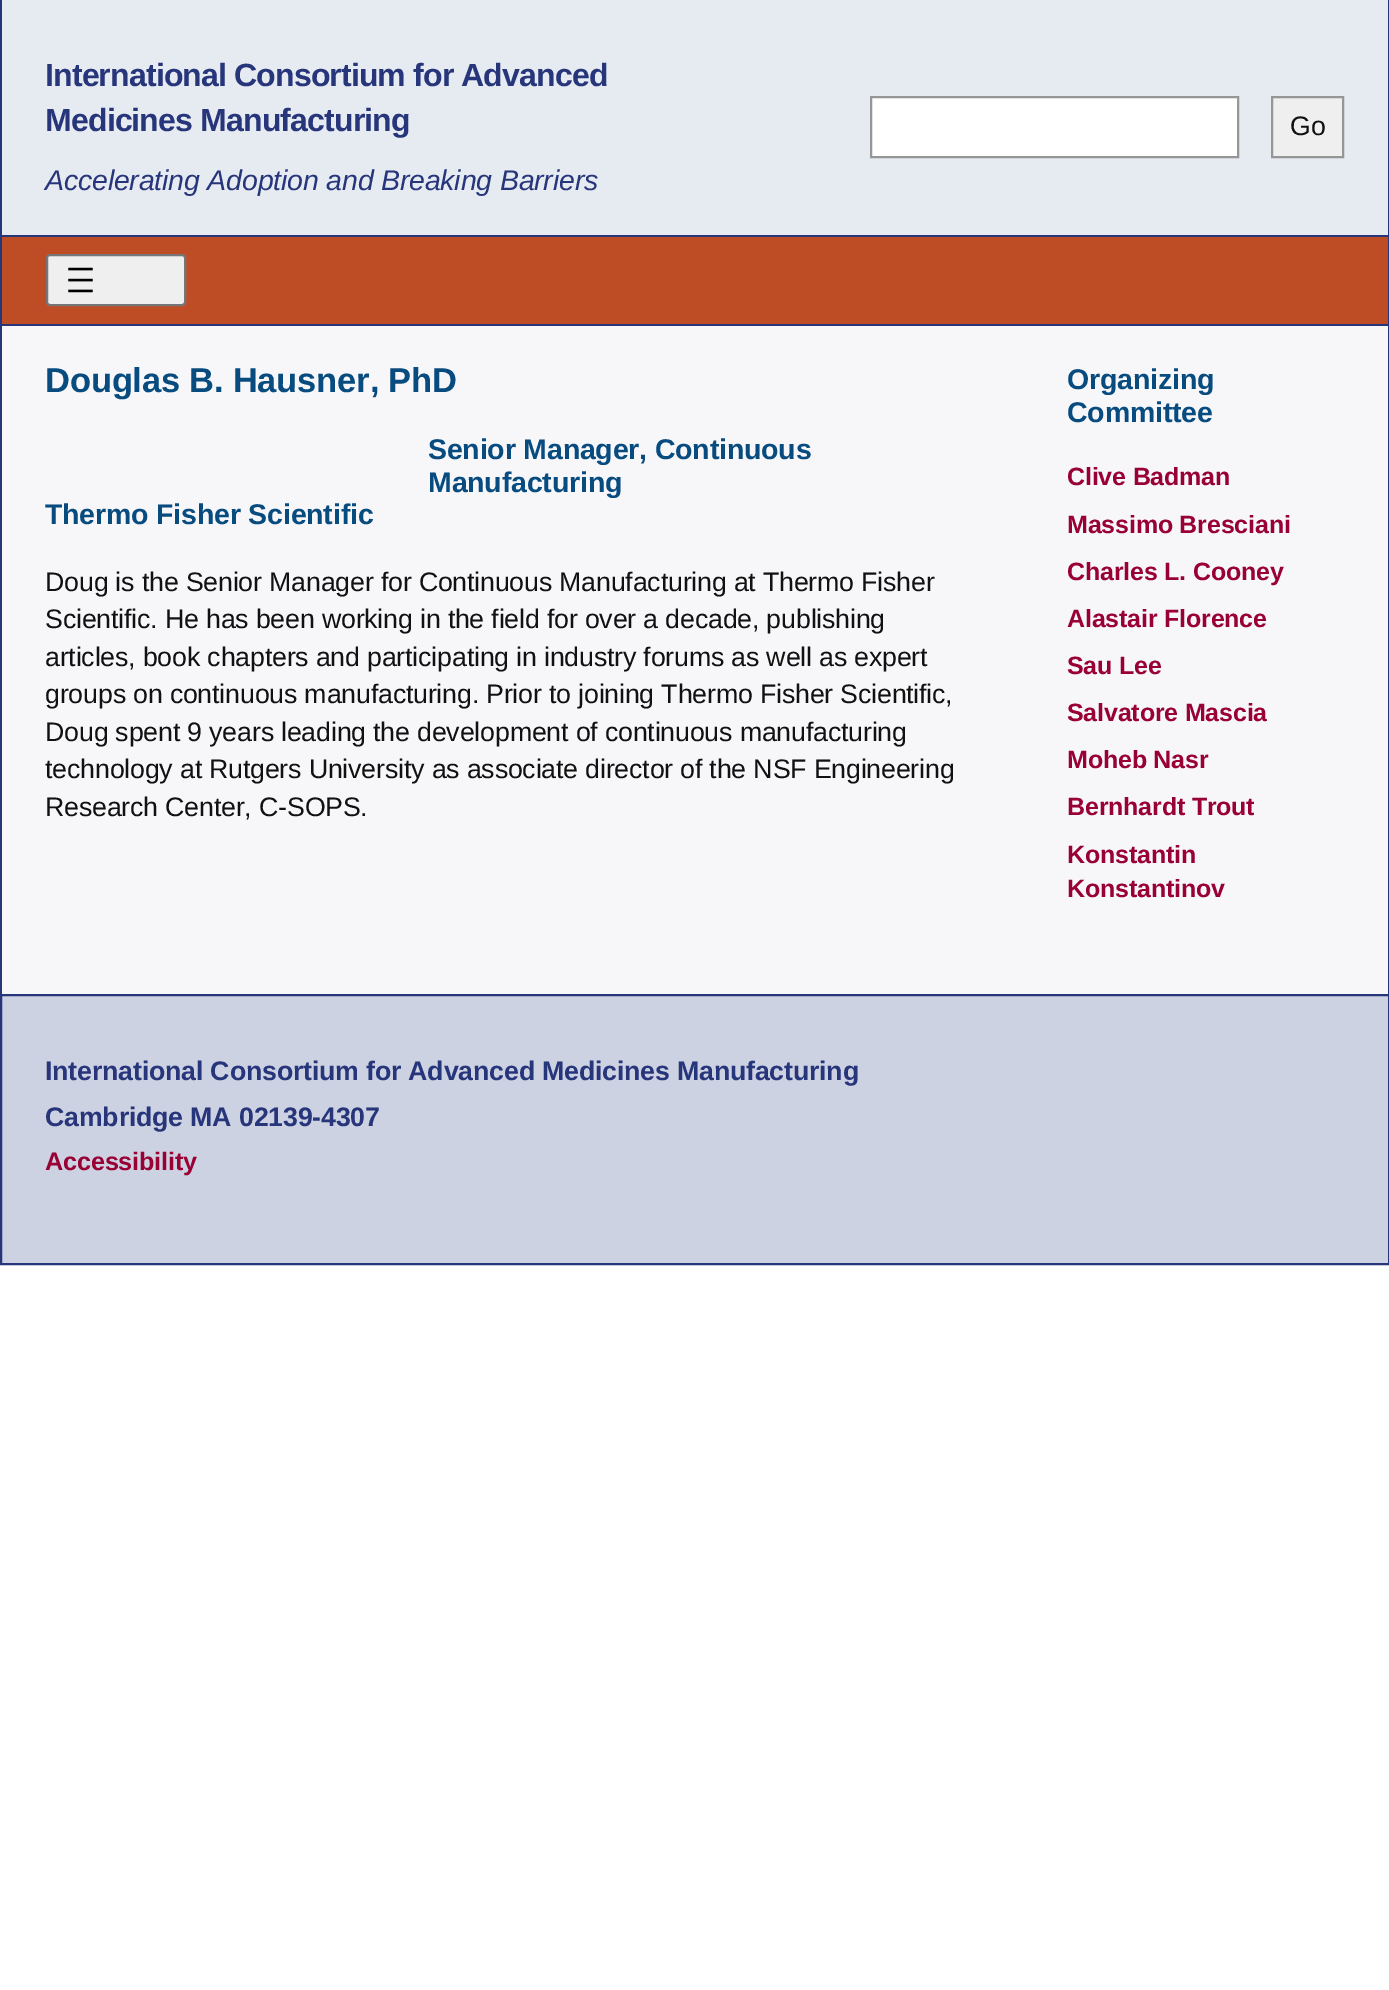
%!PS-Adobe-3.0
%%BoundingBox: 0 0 1389 1990
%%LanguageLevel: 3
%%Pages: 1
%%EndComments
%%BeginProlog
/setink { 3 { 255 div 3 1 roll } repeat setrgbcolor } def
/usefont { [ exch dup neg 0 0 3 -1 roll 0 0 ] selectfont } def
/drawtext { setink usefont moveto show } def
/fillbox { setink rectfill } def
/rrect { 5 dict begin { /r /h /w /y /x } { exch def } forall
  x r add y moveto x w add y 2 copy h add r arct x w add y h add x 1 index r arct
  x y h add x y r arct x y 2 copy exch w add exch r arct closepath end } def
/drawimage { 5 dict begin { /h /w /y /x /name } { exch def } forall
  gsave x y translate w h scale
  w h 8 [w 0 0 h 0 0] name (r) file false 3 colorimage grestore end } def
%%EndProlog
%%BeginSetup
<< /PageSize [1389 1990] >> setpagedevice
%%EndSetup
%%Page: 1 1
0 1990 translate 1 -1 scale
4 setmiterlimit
0 0 1389 1990 255 255 255 fillbox
2 0 1386 235 230 234 241 fillbox
1388 0 1 994 39 53 122 fillbox
0 0 2 994 39 53 122 fillbox
/LiberationSans-Bold 32.1 usefont
45 86 moveto -0.9 0 (International Consortium for Advanced) ashow
45 131 moveto -0.9 0 (Medicines Manufacturing) ashow
/LiberationSans-Italic 28.5 usefont
45 190 moveto -0.18 0 (Accelerating Adoption and Breaking Barriers) ashow
255 255 255 setink
871 97 moveto 1238 97 lineto 1238 157 lineto 871 157 lineto closepath gsave fill grestore
150 150 150 setink
2 setlinewidth
stroke
239 239 239 setink
1272 97 moveto 1343 97 lineto 1343 157 lineto 1272 157 lineto closepath gsave fill grestore
150 150 150 setink
stroke
(Go) 1290 135 /LiberationSans-Regular 26.75 17 17 17 drawtext
2 237 1386 87 190 77 38 fillbox
2 235 1386 2 39 53 122 fillbox
2 324 1386 2 39 53 122 fillbox
239 239 239 setink
47 255 138 50 3 rrect gsave fill grestore
118 118 118 setink
stroke
(assets/img1.rgb) 68 267 25 26 drawimage
2 326 1386 668 247 247 249 fillbox
/LiberationSans-Bold 34.5 usefont
7 75 127 setink
45 392 moveto -0.18 0 (Douglas B. Hausner, PhD) ashow
/LiberationSans-Bold 28.5 usefont
428 459 moveto -0.18 0 (Senior Manager, Continuous) ashow
428 492 moveto -0.18 0 (Manufacturing) ashow
45 524 moveto -0.18 0 (Thermo Fisher Scientific) ashow
/LiberationSans-Regular 26.75 usefont
17 17 17 setink
45 591 moveto -0.18 0 (Doug is the Senior Manager for Continuous Manufacturing at Thermo Fisher) ashow
45 628 moveto -0.18 0 (Scientific. He has been working in the field for over a decade, publishing) ashow
45 666 moveto -0.18 0 (articles, book chapters and participating in industry forums as well as expert) ashow
45 703 moveto -0.18 0 (groups on continuous manufacturing. Prior to joining Thermo Fisher Scientific,) ashow
45 741 moveto -0.18 0 (Doug spent 9 years leading the development of continuous manufacturing) ashow
45 778 moveto -0.18 0 (technology at Rutgers University as associate director of the NSF Engineering) ashow
45 816 moveto -0.18 0 (Research Center, C-SOPS.) ashow
/LiberationSans-Bold 28.5 usefont
7 75 127 setink
1067 389 moveto -0.18 0 (Organizing) ashow
1067 422 moveto -0.18 0 (Committee) ashow
/LiberationSans-Bold 25 usefont
153 0 51 setink
1067 485 moveto -0.18 0 (Clive Badman) ashow
1067 533 moveto -0.18 0 (Massimo Bresciani) ashow
1067 580 moveto -0.18 0 (Charles L. Cooney) ashow
1067 627 moveto -0.18 0 (Alastair Florence) ashow
1067 674 moveto -0.18 0 (Sau Lee) ashow
1067 721 moveto -0.18 0 (Salvatore Mascia) ashow
1067 768 moveto -0.18 0 (Moheb Nasr) ashow
1067 815 moveto -0.18 0 (Bernhardt Trout) ashow
1067 863 moveto -0.18 0 (Konstantin) ashow
1067 897 moveto -0.18 0 (Konstantinov) ashow
204 210 226 setink
1 995 moveto 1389 995 lineto 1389 1264 lineto 1 1264 lineto closepath gsave fill grestore
39 53 122 setink
stroke
/LiberationSans-Bold 26.75 usefont
45 1080 moveto -0.18 0 (International Consortium for Advanced Medicines Manufacturing) ashow
45 1126 moveto -0.18 0 (Cambridge MA 02139-4307) ashow
/LiberationSans-Bold 25.25 usefont
153 0 51 setink
45 1170 moveto -0.18 0 (Accessibility) ashow
showpage
%%EOF
